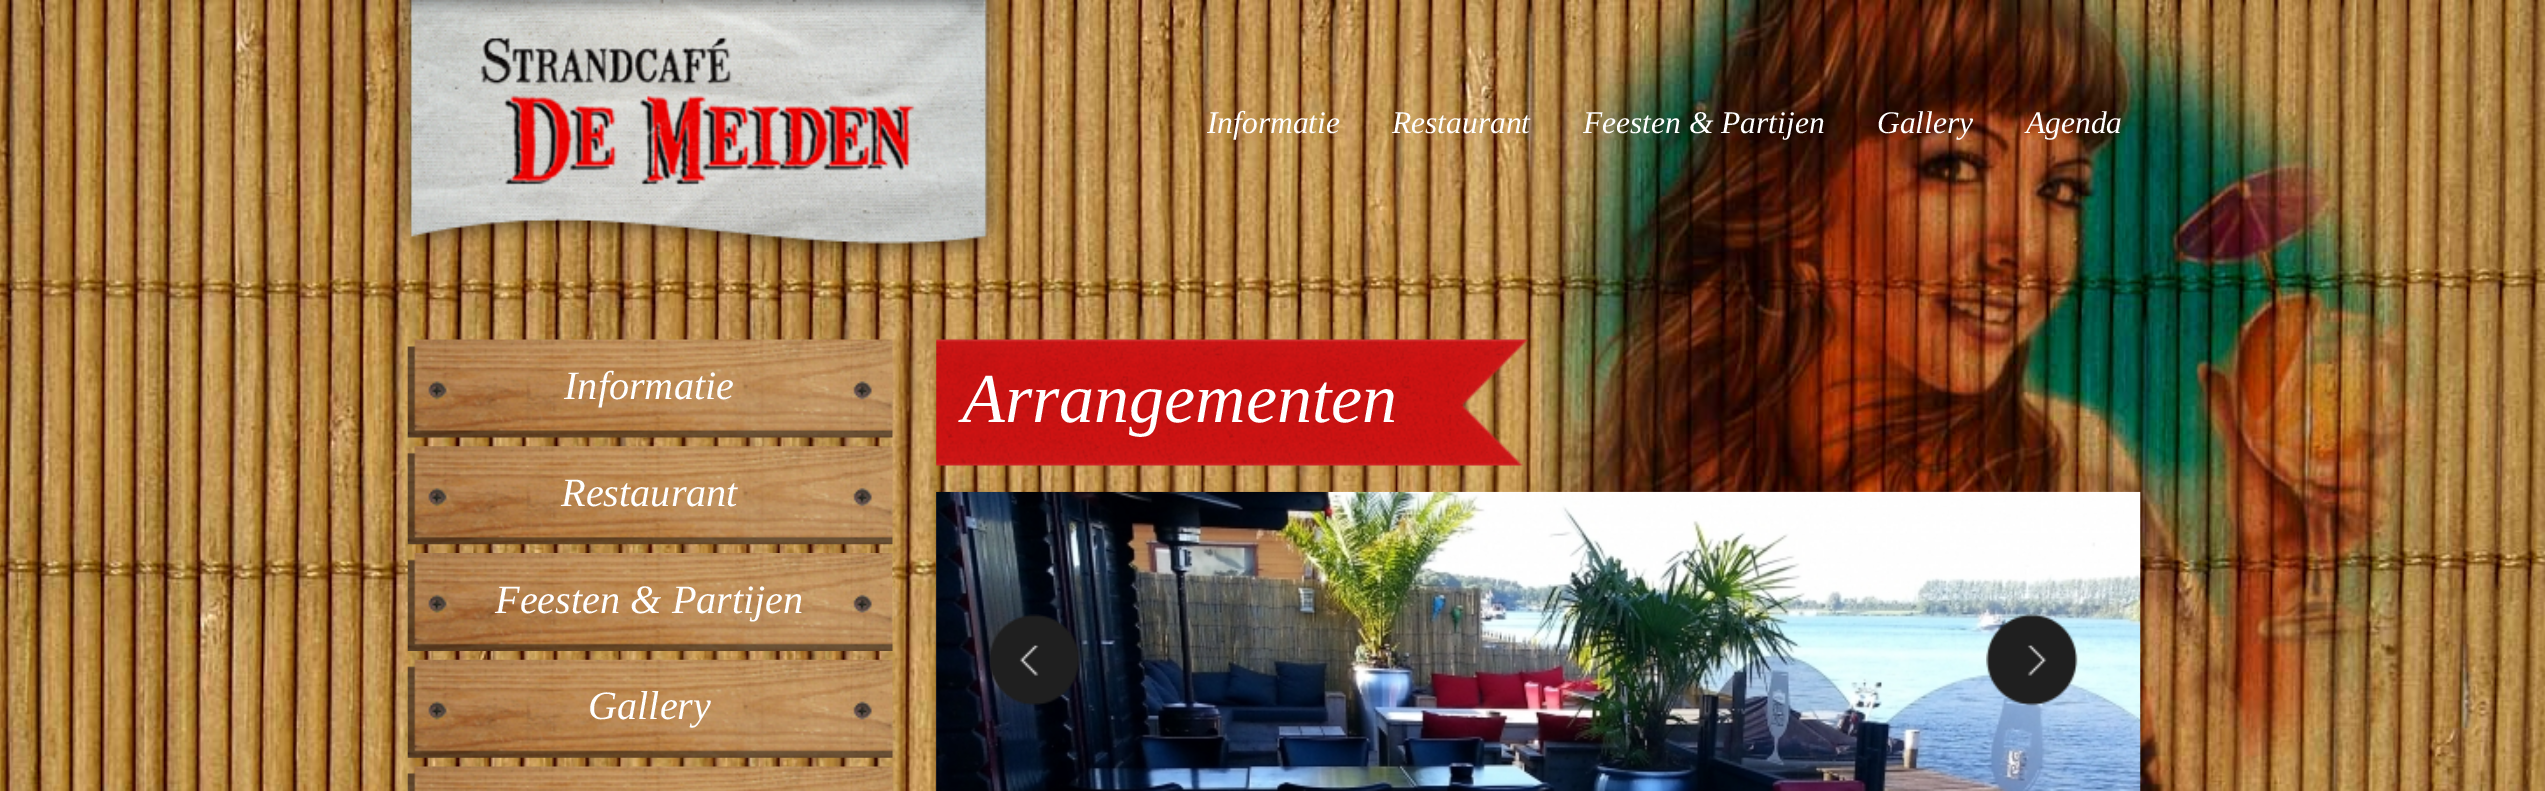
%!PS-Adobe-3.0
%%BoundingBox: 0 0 2545 791
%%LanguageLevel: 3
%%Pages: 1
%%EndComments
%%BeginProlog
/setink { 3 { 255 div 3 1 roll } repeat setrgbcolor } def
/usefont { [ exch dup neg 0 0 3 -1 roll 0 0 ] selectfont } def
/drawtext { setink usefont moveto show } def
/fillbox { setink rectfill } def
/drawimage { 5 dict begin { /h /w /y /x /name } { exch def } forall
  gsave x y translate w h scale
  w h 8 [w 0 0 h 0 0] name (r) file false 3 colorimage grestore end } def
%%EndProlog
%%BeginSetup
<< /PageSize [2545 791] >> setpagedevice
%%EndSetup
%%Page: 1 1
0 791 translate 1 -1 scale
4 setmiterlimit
0 0 2545 791 255 255 255 fillbox
(assets/img1.rgb) 0 0 2545 791 drawimage
(assets/img2.rgb) 392 0 613 262 drawimage
(Informatie) 1207 133 /LiberationSerif-Italic 31.5 255 255 255 drawtext
(Restaurant) 1392 133 /LiberationSerif-Italic 31.5 255 255 255 drawtext
(Feesten & Partijen) 1583 133 /LiberationSerif-Italic 31.5 255 255 255 drawtext
(Gallery) 1877 133 /LiberationSerif-Italic 31.5 255 255 255 drawtext
(Agenda) 2026 133 /LiberationSerif-Italic 31.5 255 255 255 drawtext
(assets/img3.rgb) 407 339 486 99 drawimage
(Informatie) 564 399 /LiberationSerif-Italic 40.25 255 255 255 drawtext
(assets/img4.rgb) 407 446 486 99 drawimage
(Restaurant) 561 506 /LiberationSerif-Italic 40.25 255 255 255 drawtext
(assets/img5.rgb) 407 553 486 98 drawimage
(Feesten & Partijen) 495 613 /LiberationSerif-Italic 40.25 255 255 255 drawtext
(assets/img6.rgb) 407 659 486 99 drawimage
(Gallery) 588 719 /LiberationSerif-Italic 40.25 255 255 255 drawtext
(assets/img7.rgb) 407 766 486 25 drawimage
(assets/img8.rgb) 936 339 592 127 drawimage
(Arrangementen) 962 422 /LiberationSerif-Italic 70 255 255 255 drawtext
936 492 1 299 51 51 51 fillbox
(assets/img9.rgb) 936 491 1205 300 drawimage
(assets/img10.rgb) 989 614 91 91 drawimage
(assets/img11.rgb) 1986 614 92 92 drawimage
showpage
%%EOF
